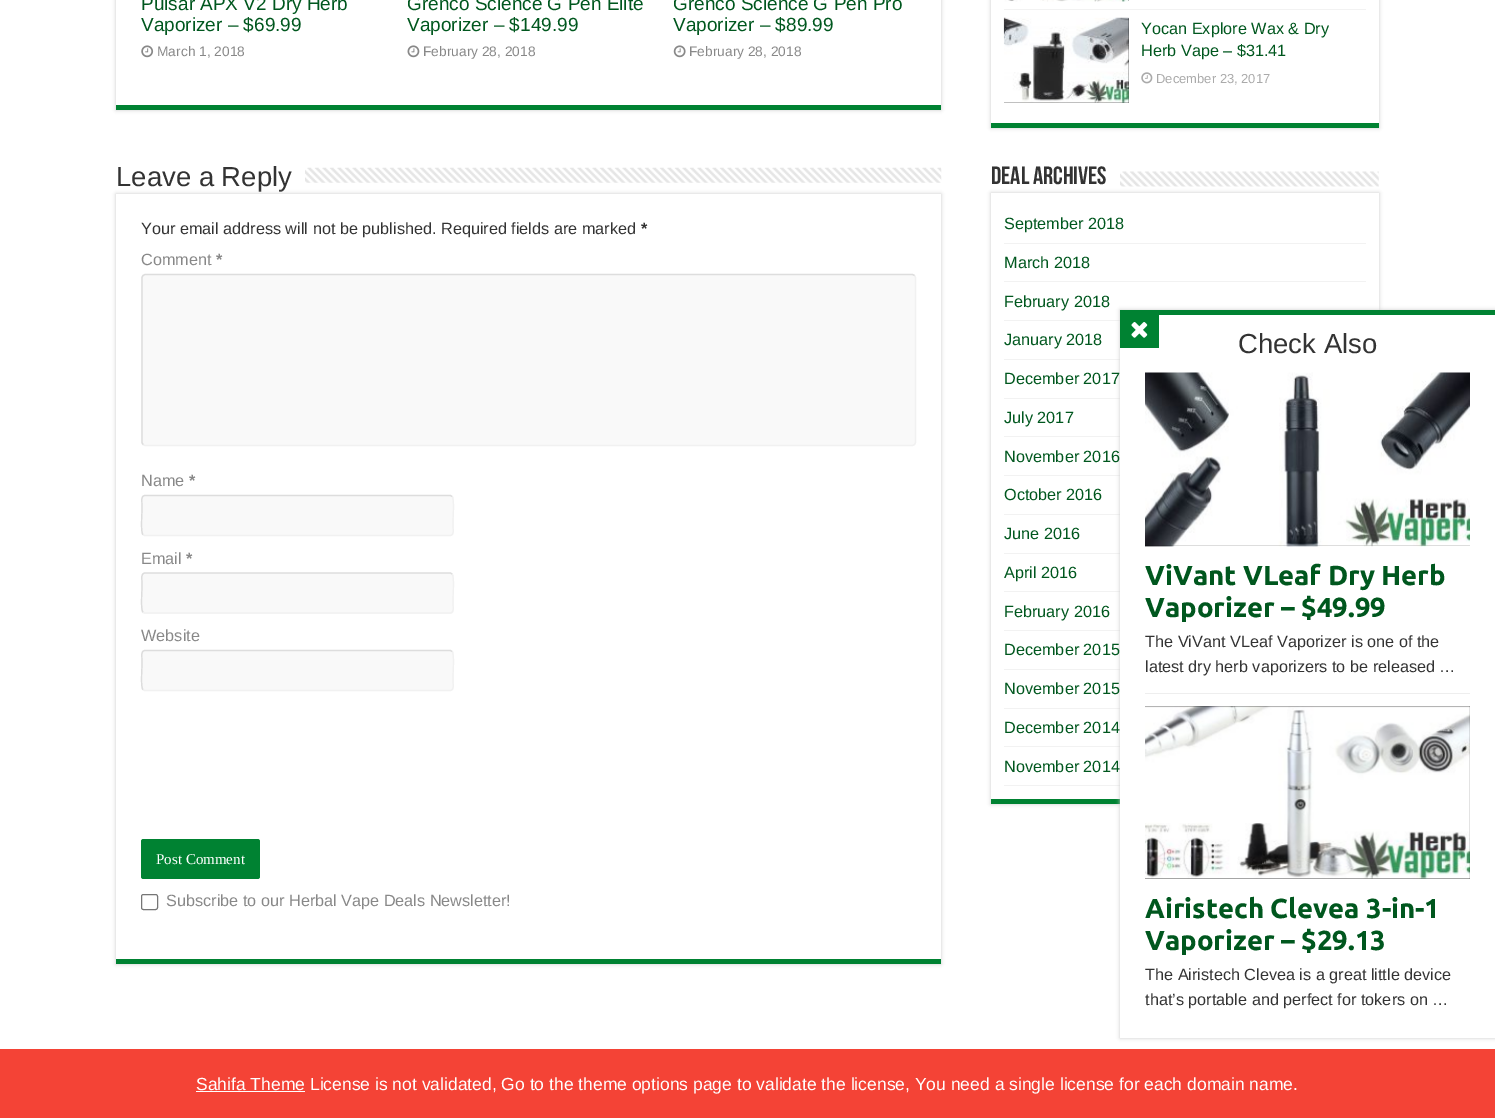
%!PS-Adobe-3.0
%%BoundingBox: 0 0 1495 1118
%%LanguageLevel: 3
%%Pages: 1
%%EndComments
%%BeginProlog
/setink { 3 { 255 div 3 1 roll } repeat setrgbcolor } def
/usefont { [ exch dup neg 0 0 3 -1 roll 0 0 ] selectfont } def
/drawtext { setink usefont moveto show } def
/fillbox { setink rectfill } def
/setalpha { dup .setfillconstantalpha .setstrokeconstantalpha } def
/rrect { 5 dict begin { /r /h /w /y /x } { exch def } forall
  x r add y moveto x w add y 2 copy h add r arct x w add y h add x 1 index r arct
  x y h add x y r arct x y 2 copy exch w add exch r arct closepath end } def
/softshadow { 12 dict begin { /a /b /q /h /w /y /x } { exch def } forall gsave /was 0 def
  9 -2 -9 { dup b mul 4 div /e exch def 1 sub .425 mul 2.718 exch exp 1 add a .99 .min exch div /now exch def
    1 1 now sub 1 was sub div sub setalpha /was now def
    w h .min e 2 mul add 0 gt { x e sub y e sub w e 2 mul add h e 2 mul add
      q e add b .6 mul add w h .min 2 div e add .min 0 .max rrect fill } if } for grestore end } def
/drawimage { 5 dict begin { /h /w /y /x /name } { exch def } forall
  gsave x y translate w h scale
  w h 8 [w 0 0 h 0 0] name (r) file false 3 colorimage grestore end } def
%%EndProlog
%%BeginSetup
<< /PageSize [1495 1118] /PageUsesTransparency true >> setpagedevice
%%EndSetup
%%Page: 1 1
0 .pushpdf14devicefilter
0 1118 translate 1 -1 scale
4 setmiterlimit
0 0 1495 1118 255 255 255 fillbox
202 202 202 setink
116 -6 825 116 0 2 1 softshadow
116 0 825 105 255 255 255 fillbox
116 105 825 5 0 130 50 fillbox
(Pulsar APX V2 Dry Herb) 141 10 /LiberationSans-Regular 19 0 87 30 drawtext
(Vaporizer – $69.99) 141 31 /LiberationSans-Regular 19 0 87 30 drawtext
(assets/img1.rgb) 141 45 13 13 drawimage
(March 1, 2018) 157 56 /LiberationSans-Regular 13.75 136 136 136 drawtext
(Grenco Science G Pen Elite) 407 10 /LiberationSans-Regular 19 0 87 30 drawtext
(Vaporizer – $149.99) 407 31 /LiberationSans-Regular 19 0 87 30 drawtext
(assets/img2.rgb) 407 45 13 13 drawimage
(February 28, 2018) 423 56 /LiberationSans-Regular 13.75 136 136 136 drawtext
(Grenco Science G Pen Pro) 673 10 /LiberationSans-Regular 19 0 87 30 drawtext
(Vaporizer – $89.99) 673 31 /LiberationSans-Regular 19 0 87 30 drawtext
(assets/img3.rgb) 673 45 13 13 drawimage
(February 28, 2018) 689 56 /LiberationSans-Regular 13.75 136 136 136 drawtext
(Leave a Reply) 116 186 /LiberationSans-Regular 27.5 51 51 51 drawtext
(assets/img4.rgb) 305 167 637 16 drawimage
202 202 202 setink
116 194 825 770 0 2 1 softshadow
116 194 825 765 255 255 255 fillbox
116 959 825 5 0 130 50 fillbox
(Your email address will not be published. Required fields are marked) 141 234 /LiberationSans-Regular 16.25 51 51 51 drawtext
(*) 641 234 /LiberationSans-Bold 16.25 51 51 51 drawtext
(Comment) 141 265 /LiberationSans-Regular 16.25 136 136 136 drawtext
(*) 216 265 /LiberationSans-Bold 16.25 136 136 136 drawtext
249 249 249 setink
141 274 775 172 4 rrect fill
241 241 241 setink
1.2 setlinewidth
914.5 275.5 moveto 915.5 277.5 lineto 915.5 442.5 lineto 914.5 444.5 lineto 912.5 445.5 lineto 145 445.5 lineto 143 444.5 lineto stroke
221 221 221 setink
143 444.5 moveto 142 442.5 lineto 142 277.5 lineto 143 275.5 lineto 145 274.5 lineto 912.5 274.5 lineto 914.5 275.5 lineto stroke
(Name) 141 486 /LiberationSans-Regular 16.25 136 136 136 drawtext
(*) 189 486 /LiberationSans-Bold 16.25 136 136 136 drawtext
249 249 249 setink
141 495 313 41 4 rrect fill
241 241 241 setink
452 496.5 moveto 454.5 498.5 453 517.5 453 521 curveto 453 527 lineto 453 529 454.5 535.5 450 535.5 curveto 144.5 535.5 lineto 143 534.5 lineto stroke
221 221 221 setink
143 534.5 moveto 140.5 532.5 142 514 142 510 curveto 142 504.5 lineto 142 502 140.5 495.5 145 495.5 curveto 450.5 495.5 lineto 452 496.5 lineto stroke
(Email) 141 564 /LiberationSans-Regular 16.25 136 136 136 drawtext
(*) 186 564 /LiberationSans-Bold 16.25 136 136 136 drawtext
249 249 249 setink
141 573 313 41 4 rrect fill
241 241 241 setink
452 574 moveto 454.5 576 453 595 453 599 curveto 453 604.5 lineto 453 606.5 454.5 613 450 613 curveto 144.5 613 lineto 143 612 lineto stroke
221 221 221 setink
143 612 moveto 140.5 610 142 591.5 142 587.5 curveto 142 582 lineto 142 579.5 140.5 573 145 573 curveto 450.5 573 lineto 452 574 lineto stroke
(Website) 141 641 /LiberationSans-Regular 16.25 136 136 136 drawtext
249 249 249 setink
141 650 313 41 4 rrect fill
241 241 241 setink
452 651.5 moveto 454.5 653.5 453 672.5 453 676 curveto 453 682 lineto 453 684 454.5 690.5 450 690.5 curveto 144.5 690.5 lineto 143 689.5 lineto stroke
221 221 221 setink
143 689.5 moveto 140.5 687.5 142 669 142 665 curveto 142 659.5 lineto 142 657 140.5 650.5 145 650.5 curveto 450.5 650.5 lineto 452 651.5 lineto stroke
0 130 50 setink
141 839 119 40 2.5 rrect fill
(Post Comment) 156 864 /LiberationSerif-Regular 15 255 255 255 drawtext
118 118 118 setink
1 setlinewidth
141.5 894.5 16 15 2 rrect stroke
(Subscribe to our Herbal Vape Deals Newsletter!) 166 906 /LiberationSans-Regular 16.25 136 136 136 drawtext
202 202 202 setink
991 193 388 611 0 2 1 softshadow
991 193 388 606 255 255 255 fillbox
991 799 129 5 0 130 50 fillbox
1004 320 116 1 242 242 242 fillbox
1004 359 116 1 242 242 242 fillbox
1004 398 116 1 242 242 242 fillbox
1004 436 116 1 242 242 242 fillbox
1004 475 116 1 242 242 242 fillbox
1004 514 116 1 242 242 242 fillbox
1004 553 116 1 242 242 242 fillbox
1004 591 116 1 242 242 242 fillbox
1004 630 116 1 242 242 242 fillbox
1004 669 116 1 242 242 242 fillbox
1004 708 116 1 242 242 242 fillbox
1004 746 116 1 242 242 242 fillbox
1004 785 116 1 242 242 242 fillbox
202 202 202 setink
1120 310 375 728 0 2 1 softshadow
1120 315 375 723 255 255 255 fillbox
1120 310 375 5 0 130 50 fillbox
1120 315 39 33 0 130 50 fillbox
(assets/img5.rgb) 1131 322 17 16 drawimage
(Check Also) 1238 353 /LiberationSans-Regular 27.5 51 51 51 drawtext
1145 693 325 1 238 238 238 fillbox
(assets/img6.rgb) 1145 372 325 175 drawimage
(ViVant VLeaf Dry Herb) 1145 585 /Ubuntu-Bold 27.5 0 87 30 drawtext
(Vaporizer – $49.99) 1145 617 /Ubuntu-Bold 27.5 0 87 30 drawtext
(The ViVant VLeaf Vaporizer is one of the) 1145 647 /LiberationSans-Regular 16.25 51 51 51 drawtext
(latest dry herb vaporizers to be released …) 1145 672 /LiberationSans-Regular 16.25 51 51 51 drawtext
1145 706 325 173 0 0 0 fillbox
(assets/img7.rgb) 1145 706 325 173 drawimage
(Airistech Clevea 3-in-1) 1145 918 /Ubuntu-Bold 27.5 0 87 30 drawtext
(Vaporizer – $29.13) 1145 950 /Ubuntu-Bold 27.5 0 87 30 drawtext
(The Airistech Clevea is a great little device) 1145 980 /LiberationSans-Regular 16.25 51 51 51 drawtext
(that’s portable and perfect for tokers on …) 1145 1005 /LiberationSans-Regular 16.25 51 51 51 drawtext
202 202 202 setink
991 -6 388 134 0 2 1 softshadow
991 0 388 123 255 255 255 fillbox
991 123 388 5 0 130 50 fillbox
1004 9 362 1 242 242 242 fillbox
(assets/img8.rgb) 1004 0 125 2 drawimage
1004 18 125 85 0 0 0 fillbox
(assets/img9.rgb) 1003 17 126 86 drawimage
(Yocan Explore Wax & Dry) 1141 34 /LiberationSans-Regular 16.25 0 87 30 drawtext
(Herb Vape – $31.41) 1141 56 /LiberationSans-Regular 16.25 0 87 30 drawtext
(assets/img10.rgb) 1141 72 12 12 drawimage
(December 23, 2017) 1156 83 /LiberationSans-Regular 13 170 170 170 drawtext
(Deal Archives) 991 184 /BebasNeue-Bold 25 51 51 51 drawtext
(assets/img11.rgb) 1120 171 259 16 drawimage
1004 243 362 1 242 242 242 fillbox
(September 2018) 1004 229 /LiberationSans-Regular 16.25 0 87 30 drawtext
1004 281 362 1 242 242 242 fillbox
(March 2018) 1004 268 /LiberationSans-Regular 16.25 0 87 30 drawtext
(February 2018) 1004 307 /LiberationSans-Regular 16.25 0 87 30 drawtext
(January 2018) 1004 345 /LiberationSans-Regular 16.25 0 87 30 drawtext
(December 2017) 1004 384 /LiberationSans-Regular 16.25 0 87 30 drawtext
(July 2017) 1004 423 /LiberationSans-Regular 16.25 0 87 30 drawtext
(November 2016) 1004 462 /LiberationSans-Regular 16.25 0 87 30 drawtext
(October 2016) 1004 500 /LiberationSans-Regular 16.25 0 87 30 drawtext
(June 2016) 1004 539 /LiberationSans-Regular 16.25 0 87 30 drawtext
(April 2016) 1004 578 /LiberationSans-Regular 16.25 0 87 30 drawtext
(February 2016) 1004 617 /LiberationSans-Regular 16.25 0 87 30 drawtext
(December 2015) 1004 655 /LiberationSans-Regular 16.25 0 87 30 drawtext
(November 2015) 1004 694 /LiberationSans-Regular 16.25 0 87 30 drawtext
(December 2014) 1004 733 /LiberationSans-Regular 16.25 0 87 30 drawtext
(November 2014) 1004 772 /LiberationSans-Regular 16.25 0 87 30 drawtext
0 1049 1495 69 244 67 54 fillbox
196 1091 109 1 255 255 255 fillbox
(Sahifa Theme License is not validated, Go to the theme options page to validate the license, You need a single license for each domain name.) 196 1090 /LiberationSans-Regular 17.5 255 255 255 drawtext
.poppdf14devicefilter showpage
%%EOF
